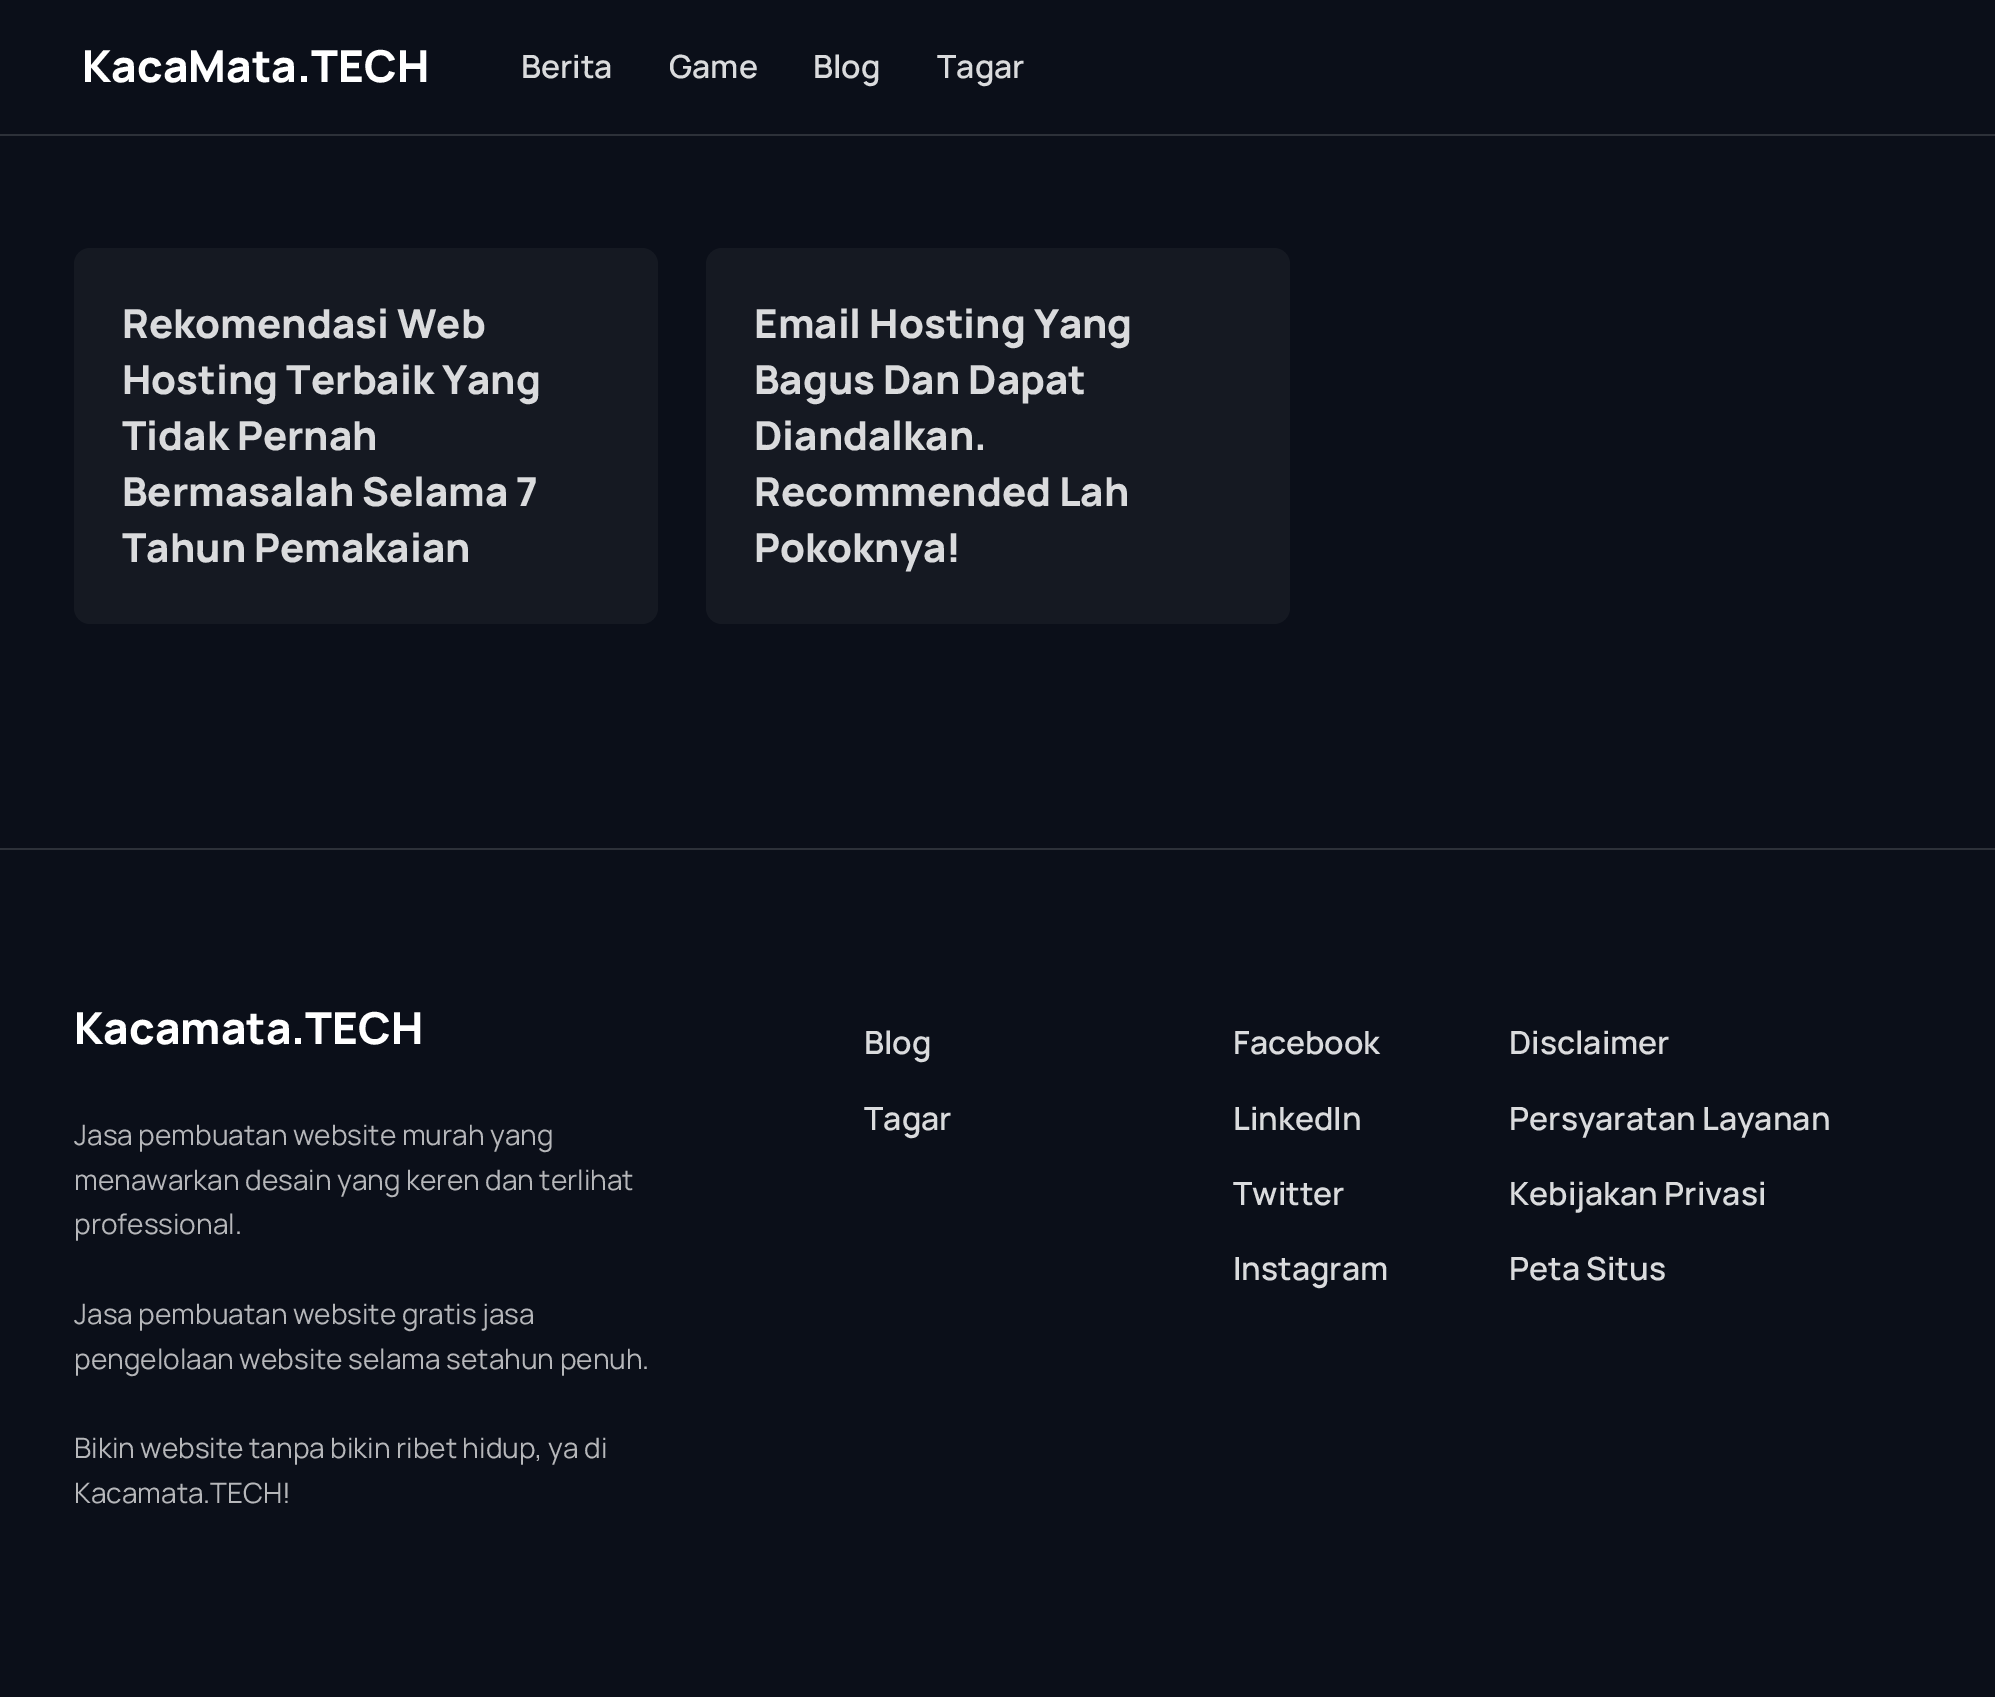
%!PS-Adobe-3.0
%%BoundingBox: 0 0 1995 1697
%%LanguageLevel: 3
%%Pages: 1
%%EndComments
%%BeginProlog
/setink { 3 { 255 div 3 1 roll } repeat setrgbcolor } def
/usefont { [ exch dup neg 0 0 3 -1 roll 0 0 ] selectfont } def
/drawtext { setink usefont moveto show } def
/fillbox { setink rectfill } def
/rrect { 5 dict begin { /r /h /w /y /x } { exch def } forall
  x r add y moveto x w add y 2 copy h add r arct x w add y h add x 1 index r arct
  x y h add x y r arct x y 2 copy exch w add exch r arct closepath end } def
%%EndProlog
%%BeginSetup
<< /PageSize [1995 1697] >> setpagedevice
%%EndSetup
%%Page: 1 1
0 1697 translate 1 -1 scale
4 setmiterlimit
0 0 1995 1697 11 15 25 fillbox
0 134 1995 2 45 49 57 fillbox
(KacaMata.TECH) 82 82 /Manrope-ExtraBold 44 255 255 255 drawtext
(Berita) 521 78 /Manrope-SemiBold 32 218 219 221 drawtext
(Game) 669 78 /Manrope-SemiBold 32 218 219 221 drawtext
(Blog) 813 78 /Manrope-SemiBold 32 218 219 221 drawtext
(Tagar) 937 78 /Manrope-SemiBold 32 218 219 221 drawtext
21 25 34 setink
74 248 584 376 16 rrect fill
(Rekomendasi Web) 122 338 /Manrope-ExtraBold 40 218 219 221 drawtext
(Hosting Terbaik Yang) 122 394 /Manrope-ExtraBold 40 218 219 221 drawtext
(Tidak Pernah) 122 450 /Manrope-ExtraBold 40 218 219 221 drawtext
(Bermasalah Selama 7) 122 506 /Manrope-ExtraBold 40 218 219 221 drawtext
(Tahun Pemakaian) 122 562 /Manrope-ExtraBold 40 218 219 221 drawtext
21 25 34 setink
706 248 584 376 16 rrect fill
(Email Hosting Yang) 754 338 /Manrope-ExtraBold 40 218 219 221 drawtext
(Bagus Dan Dapat) 754 394 /Manrope-ExtraBold 40 218 219 221 drawtext
(Diandalkan.) 754 450 /Manrope-ExtraBold 40 218 219 221 drawtext
(Recommended Lah) 754 506 /Manrope-ExtraBold 40 218 219 221 drawtext
(Pokoknya!) 754 562 /Manrope-ExtraBold 40 218 219 221 drawtext
0 848 1995 2 45 49 57 fillbox
(Kacamata.TECH) 74 1044 /Manrope-ExtraBold 44 255 255 255 drawtext
(Jasa pembuatan website murah yang) 74 1145 /Manrope-Regular 28 182 183 186 drawtext
(menawarkan desain yang keren dan terlihat) 74 1190 /Manrope-Regular 28 182 183 186 drawtext
(professional.) 74 1234 /Manrope-Regular 28 182 183 186 drawtext
(Jasa pembuatan website gratis jasa) 74 1324 /Manrope-Regular 28 182 183 186 drawtext
(pengelolaan website selama setahun penuh.) 74 1369 /Manrope-Regular 28 182 183 186 drawtext
(Bikin website tanpa bikin ribet hidup, ya di) 74 1458 /Manrope-Regular 28 182 183 186 drawtext
(Kacamata.TECH!) 74 1503 /Manrope-Regular 28 182 183 186 drawtext
(Blog) 864 1054 /Manrope-SemiBold 32 218 219 221 drawtext
(Tagar) 864 1130 /Manrope-SemiBold 32 218 219 221 drawtext
(Facebook) 1233 1054 /Manrope-SemiBold 32 218 219 221 drawtext
(LinkedIn) 1233 1130 /Manrope-SemiBold 32 218 219 221 drawtext
(Twitter) 1233 1205 /Manrope-SemiBold 32 218 219 221 drawtext
(Instagram) 1233 1280 /Manrope-SemiBold 32 218 219 221 drawtext
(Disclaimer) 1509 1054 /Manrope-SemiBold 32 218 219 221 drawtext
(Persyaratan Layanan) 1509 1130 /Manrope-SemiBold 32 218 219 221 drawtext
(Kebijakan Privasi) 1509 1205 /Manrope-SemiBold 32 218 219 221 drawtext
(Peta Situs) 1509 1280 /Manrope-SemiBold 32 218 219 221 drawtext
showpage
%%EOF
